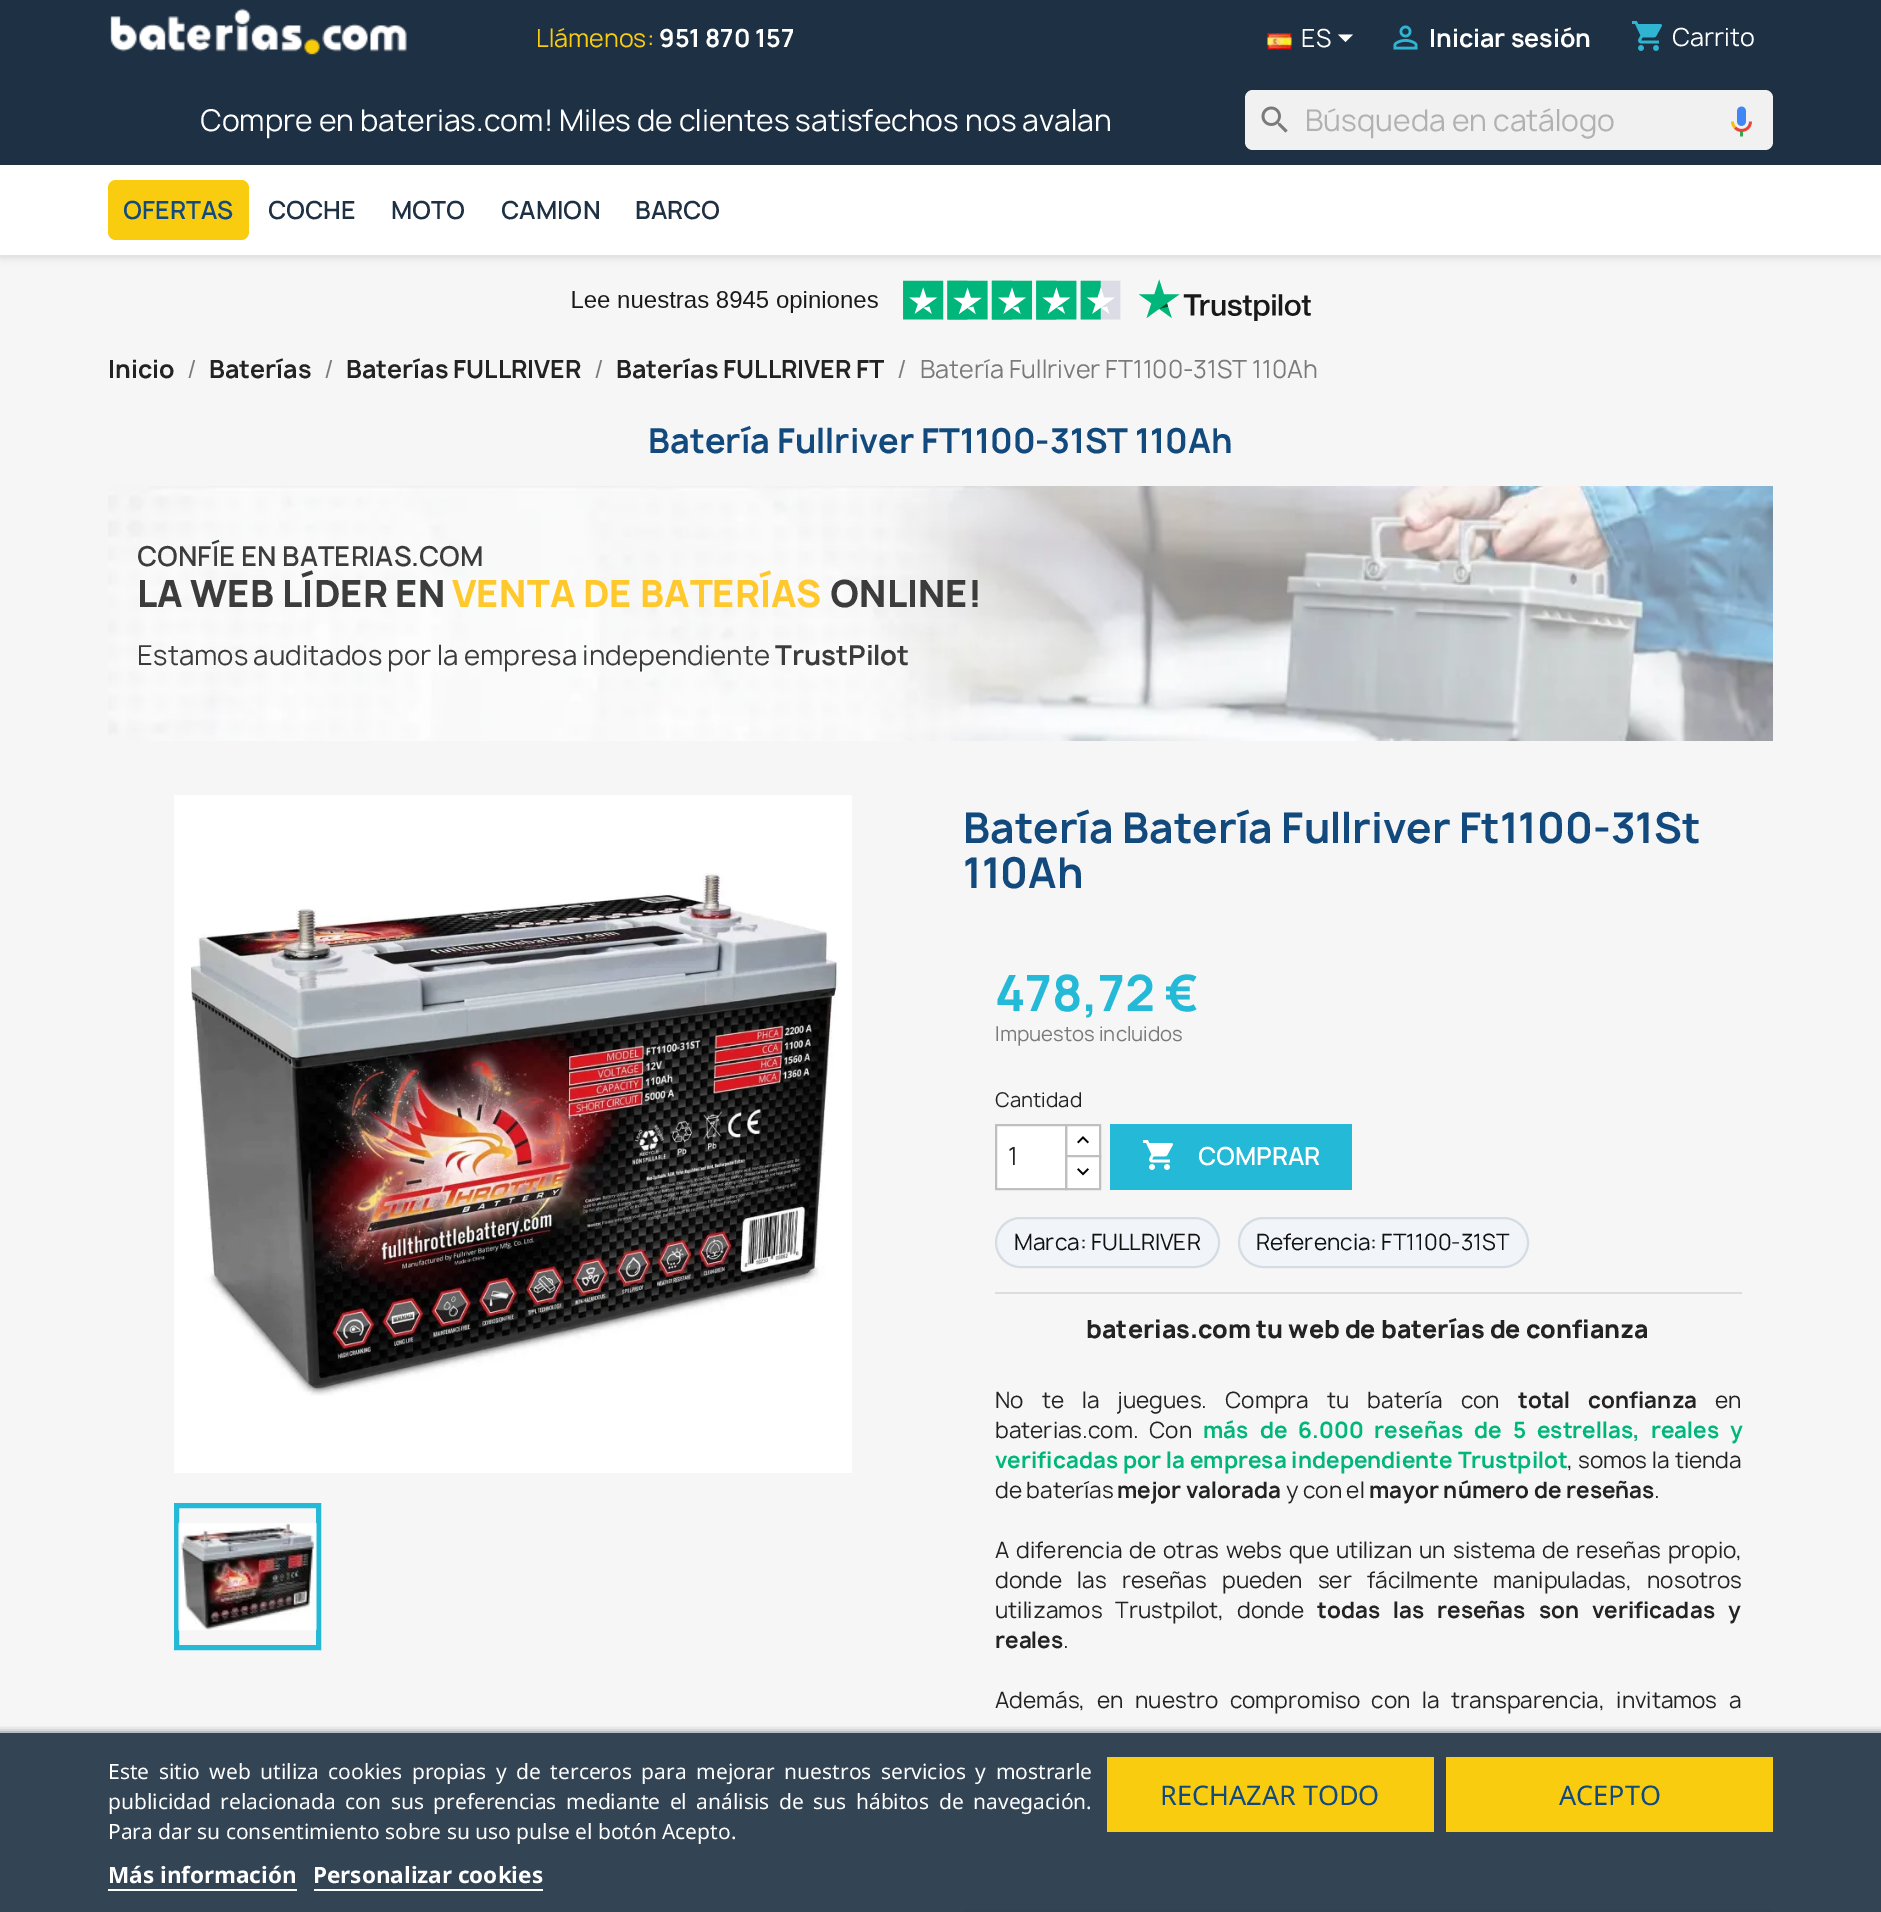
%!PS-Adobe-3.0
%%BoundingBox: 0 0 1881 1912
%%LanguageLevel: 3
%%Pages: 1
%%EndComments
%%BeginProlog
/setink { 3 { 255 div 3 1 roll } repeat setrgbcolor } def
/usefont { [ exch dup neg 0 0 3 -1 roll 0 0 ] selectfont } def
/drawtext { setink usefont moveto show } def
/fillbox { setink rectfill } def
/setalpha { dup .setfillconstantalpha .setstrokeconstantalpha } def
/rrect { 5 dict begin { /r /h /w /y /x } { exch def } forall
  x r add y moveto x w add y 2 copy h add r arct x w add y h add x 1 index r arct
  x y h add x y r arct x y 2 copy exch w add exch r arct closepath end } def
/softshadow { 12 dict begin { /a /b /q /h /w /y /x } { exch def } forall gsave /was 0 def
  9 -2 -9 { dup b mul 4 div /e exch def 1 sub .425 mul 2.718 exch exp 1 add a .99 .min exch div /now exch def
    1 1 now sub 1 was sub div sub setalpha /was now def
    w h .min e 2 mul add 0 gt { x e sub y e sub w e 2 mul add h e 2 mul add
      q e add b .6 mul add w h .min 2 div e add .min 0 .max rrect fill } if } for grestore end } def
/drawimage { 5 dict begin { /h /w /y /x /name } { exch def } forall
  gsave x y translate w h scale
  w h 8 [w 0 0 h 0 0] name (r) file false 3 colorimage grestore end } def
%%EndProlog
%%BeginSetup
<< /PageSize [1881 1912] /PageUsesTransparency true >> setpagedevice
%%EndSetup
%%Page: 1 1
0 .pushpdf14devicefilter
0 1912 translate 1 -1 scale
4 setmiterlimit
0 0 1881 1912 246 246 246 fillbox
0 0 0 setink
0 3 1881 255 0 4 0.11 softshadow
0 0 1881 165 30 49 68 fillbox
(assets/img1.rgb) 110 8 297 47 drawimage
(Llámenos:) 536 47 /Manrope-Regular 24 249 204 15 drawtext
(951 870 157) 659 47 /Manrope-Bold 24 255 255 255 drawtext
(assets/img2.rgb) 1267 33 25 17 drawimage
(ES) 1301 47 /Manrope-Regular 24 255 255 255 drawtext
1338 34.5 moveto 1353 34.5 lineto 1345.5 42 lineto closepath fill
(assets/img3.rgb) 1393 25 25 25 drawimage
(Iniciar sesión) 1429 47 /Manrope-Bold 24 255 255 255 drawtext
(assets/img4.rgb) 1632 21 30 30 drawimage
(Carrito) 1672 46 /Manrope-Regular 24 255 255 255 drawtext
(Compre en baterias.com! Miles de clientes satisfechos nos avalan) 200 131 /Manrope-Regular 28.8 255 255 255 drawtext
241 241 241 setink
1245 90 528 60 8 rrect fill
(assets/img5.rgb) 1261 106 27 27 drawimage
(Búsqueda en catálogo) 1305 131 /Manrope-Regular 28.8 177 177 177 drawtext
(assets/img6.rgb) 1731 106 21 31 drawimage
0 165 1881 90 255 255 255 fillbox
249 204 15 setink
108 180 141 60 8 rrect fill
(OFERTAS) 123 219 /Manrope-SemiBold 24 18 74 125 drawtext
(COCHE) 268 219 /Manrope-SemiBold 24 30 49 68 drawtext
(MOTO) 391 219 /Manrope-SemiBold 24 30 49 68 drawtext
(CAMION) 501 219 /Manrope-SemiBold 24 30 49 68 drawtext
(BARCO) 635 219 /Manrope-SemiBold 24 30 49 68 drawtext
(assets/img7.rgb) 572 279 739 42 drawimage
(Inicio) 108 378 /Manrope-Bold 24 35 35 35 drawtext
(/) 187 378 /Manrope-Regular 24 122 122 122 drawtext
(Baterías) 209 378 /Manrope-Bold 24 35 35 35 drawtext
(/) 324 378 /Manrope-Regular 24 122 122 122 drawtext
(Baterías FULLRIVER) 346 378 /Manrope-Bold 24 35 35 35 drawtext
(/) 594 378 /Manrope-Regular 24 122 122 122 drawtext
(Baterías FULLRIVER FT) 616 378 /Manrope-Bold 24 35 35 35 drawtext
(/) 897 378 /Manrope-Regular 24 122 122 122 drawtext
(Batería Fullriver FT1100-31ST 110Ah) 920 378 /Manrope-Regular 24 122 122 122 drawtext
(Batería Fullriver FT1100-31ST 110Ah) 648 453 /Manrope-Bold 33 18 74 125 drawtext
(assets/img8.rgb) 108 486 1665 255 drawimage
(CONFÍE EN BATERIAS.COM) 137 566 /Manrope-SemiBold 26.4 60 60 60 drawtext
(LA WEB LÍDER EN) 137 607 /Manrope-ExtraBold 36 60 60 60 drawtext
(VENTA DE BATERÍAS) 452 607 /Manrope-ExtraBold 36 255 201 46 drawtext
(ONLINE!) 830 607 /Manrope-ExtraBold 36 60 60 60 drawtext
(Estamos auditados por la empresa independiente) 137 665 /Manrope-Regular 26.4 60 60 60 drawtext
(TrustPilot) 775 665 /Manrope-Bold 26.4 60 60 60 drawtext
174 795 678 678 255 255 255 fillbox
(assets/img9.rgb) 191 871 648 525 drawimage
36 185 215 setink
5 setlinewidth
176.5 1505.5 142 142 rectstroke
(assets/img10.rgb) 178 1522 139 109 drawimage
(Batería Batería Fullriver Ft1100-31St) 963 843 /Manrope-Bold 40.75 18 74 125 drawtext
(110Ah) 963 888 /Manrope-Bold 40.75 18 74 125 drawtext
(478,72 €) 995 1011 /Manrope-Bold 48 36 185 215 drawtext
(Impuestos incluidos) 995 1041 /Manrope-Regular 19.5 122 122 122 drawtext
(Cantidad) 995 1107 /Manrope-Regular 19.5 35 35 35 drawtext
1067 1126 32 29 255 255 255 fillbox
191 191 191 setink
2 setlinewidth
1066 1125 34 32 rectstroke
255 255 255 setink
1066 1156 moveto 1100 1156 lineto 1100 1189 lineto 1066 1189 lineto closepath gsave fill grestore
191 191 191 setink
stroke
255 255 255 setink
996 1125 moveto 1066 1125 lineto 1066 1189 lineto 996 1189 lineto closepath gsave fill grestore
191 191 191 setink
stroke
(1) 1008 1165 /Manrope-Regular 24 35 35 35 drawtext
(assets/img11.rgb) 1077 1136 12 8 drawimage
(assets/img12.rgb) 1077 1168 12 8 drawimage
1110 1124 242 66 36 185 215 fillbox
(assets/img13.rgb) 1142 1140 31 30 drawimage
(COMPRAR) 1198 1165 /Manrope-SemiBold 24 255 255 255 drawtext
241 245 249 setink
996 1218 223 49 24.5 rrect gsave fill grestore
213 220 227 setink
stroke
(Marca: FULLRIVER) 1014 1250 /Manrope-Regular 21.6 17 17 17 drawtext
241 245 249 setink
1239 1218 289 49 24.5 rrect gsave fill grestore
213 220 227 setink
stroke
(Referencia: FT1100-31ST) 1256 1250 /Manrope-Regular 21.6 17 17 17 drawtext
995 1292 747 2 221 221 221 fillbox
(baterias.com tu web de baterías de confianza) 1086 1338 /Manrope-ExtraBold 24 35 35 35 drawtext
/Manrope-Regular 21.6 usefont
995 1408 moveto 13.5 0 32 (No te la juegues. Compra tu batería con) widthshow
/Manrope-Bold 21.6 usefont
1518 1408 moveto 13.5 0 32 (total confianza) widthshow
(en) 1715 1408 /Manrope-Regular 21.6 35 35 35 drawtext
995 1438 moveto 6.5 0 32 (baterias.com. Con) widthshow
/Manrope-Bold 21.6 usefont
0 182 122 setink
1203 1438 moveto 6.5 0 32 (más de 6.000 reseñas de 5 estrellas, reales y) widthshow
995 1468 moveto 0.5 0 32 (verificadas por la empresa independiente Trustpilot) widthshow
/Manrope-Regular 21.6 usefont
35 35 35 setink
1567 1468 moveto 0.5 0 32 (, somos la tienda) widthshow
(de baterías) 995 1498 /Manrope-Regular 21.6 35 35 35 drawtext
(mejor valorada) 1117 1498 /Manrope-Bold 21.6 35 35 35 drawtext
(y con el) 1286 1498 /Manrope-Regular 21.6 35 35 35 drawtext
(mayor número de reseñas) 1369 1498 /Manrope-Bold 21.6 35 35 35 drawtext
(.) 1654 1498 /Manrope-Regular 21.6 35 35 35 drawtext
995 1558 moveto 2.4 0 32 (A diferencia de otras webs que utilizan un sistema de reseñas propio,) widthshow
995 1588 moveto 10.75 0 32 (donde las reseñas pueden ser fácilmente manipuladas, nosotros) widthshow
995 1618 moveto 8.5 0 32 (utilizamos Trustpilot, donde) widthshow
/Manrope-Bold 21.6 usefont
1317 1618 moveto 8.5 0 32 (todas las reseñas son verificadas y) widthshow
(reales) 995 1648 /Manrope-Bold 21.6 35 35 35 drawtext
(.) 1063 1648 /Manrope-Regular 21.6 35 35 35 drawtext
995 1708 moveto 7 0 32 (Además, en nuestro compromiso con la transparencia, invitamos a) widthshow
963 1910 810 2 221 221 221 fillbox
gsave
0 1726 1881 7 rectclip
30 49 68 setink
0 1734 1881 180 0 4 1 softshadow
grestore
0.9 setalpha
0 1733 1881 179 30 49 68 fillbox
/NotoSans-Regular 21 usefont
1 setalpha
255 255 255 setink
108 1779 moveto 4.1 0 32 (Este sitio web utiliza cookies propias y de terceros para mejorar nuestros servicios y mostrarle) widthshow
108 1809 moveto 4.1 0 32 (publicidad relacionada con sus preferencias mediante el análisis de sus hábitos de navegación.) widthshow
(Para dar su consentimiento sobre su uso pulse el botón Acepto.) 108 1839 /NotoSans-Regular 21 255 255 255 drawtext
(Más información) 108 1883 /NotoSans-Bold 22.5 255 255 255 drawtext
108 1889 189 2 255 255 255 fillbox
(Personalizar cookies) 313 1883 /NotoSans-Bold 22.5 255 255 255 drawtext
314 1889 229 2 255 255 255 fillbox
1107 1757 327 75 249 204 15 fillbox
(RECHAZAR TODO) 1160 1805 /NotoSans-Regular 27 18 74 125 drawtext
1446 1757 327 75 249 204 15 fillbox
(ACEPTO) 1559 1805 /NotoSans-Regular 27 18 74 125 drawtext
.poppdf14devicefilter showpage
%%EOF
